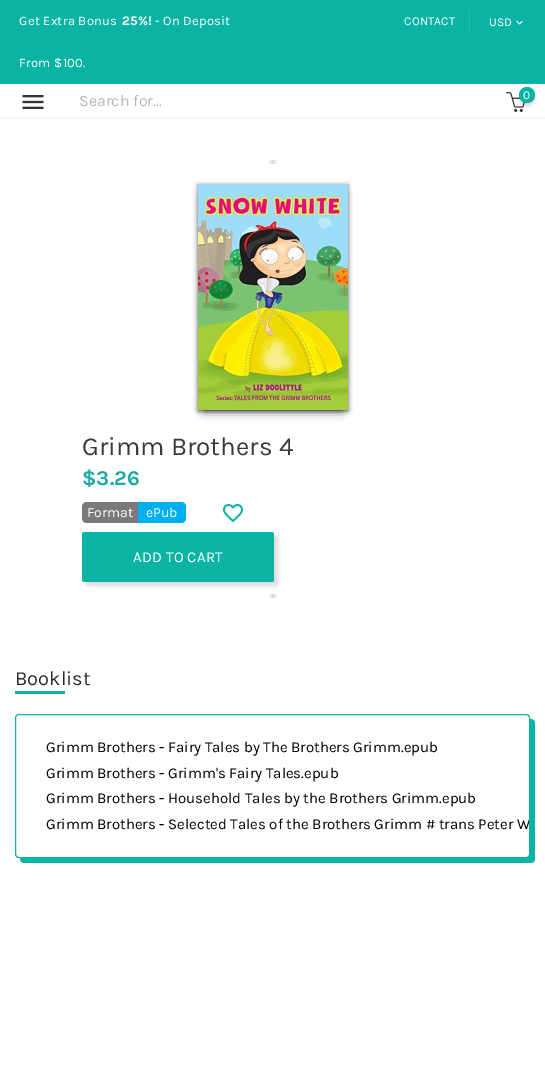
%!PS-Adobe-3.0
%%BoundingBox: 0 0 545 1074
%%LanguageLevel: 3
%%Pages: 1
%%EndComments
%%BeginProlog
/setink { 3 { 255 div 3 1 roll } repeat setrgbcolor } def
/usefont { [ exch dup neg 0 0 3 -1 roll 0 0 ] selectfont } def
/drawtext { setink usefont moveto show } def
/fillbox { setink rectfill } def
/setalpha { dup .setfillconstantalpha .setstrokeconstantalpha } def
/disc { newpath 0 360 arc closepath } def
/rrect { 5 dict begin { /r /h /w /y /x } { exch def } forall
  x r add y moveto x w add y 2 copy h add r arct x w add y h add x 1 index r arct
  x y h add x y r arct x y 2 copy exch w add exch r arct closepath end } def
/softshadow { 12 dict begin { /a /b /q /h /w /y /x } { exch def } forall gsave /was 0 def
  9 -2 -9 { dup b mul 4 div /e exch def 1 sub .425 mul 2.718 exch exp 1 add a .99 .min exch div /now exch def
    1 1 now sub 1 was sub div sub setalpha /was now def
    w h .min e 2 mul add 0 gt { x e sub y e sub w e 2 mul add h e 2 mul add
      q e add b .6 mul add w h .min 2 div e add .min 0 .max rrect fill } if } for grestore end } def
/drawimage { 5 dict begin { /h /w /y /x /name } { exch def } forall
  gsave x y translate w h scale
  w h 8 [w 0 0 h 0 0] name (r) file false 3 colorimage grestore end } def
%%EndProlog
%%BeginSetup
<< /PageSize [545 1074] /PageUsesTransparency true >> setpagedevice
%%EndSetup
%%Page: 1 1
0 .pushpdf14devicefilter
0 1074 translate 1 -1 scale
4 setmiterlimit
0 0 545 1074 255 255 255 fillbox
0 0 545 84 10 179 163 fillbox
/Karla-Regular 13 usefont
255 255 255 setink
19 25 moveto 0.25 0 (Get Extra Bonus) ashow
/Karla-Bold 13 usefont
122 25 moveto 0.25 0 (25%!) ashow
/Karla-Regular 13 usefont
155 25 moveto 0.25 0 (- On Deposit) ashow
19 67 moveto 0.25 0 (From $100.) ashow
/Karla-Regular 12 usefont
404 25 moveto 0.25 0 (CONTACT) ashow
469 9 1 25 35 187 172 fillbox
(USD) 489 26 /Karla-Regular 12 255 255 255 drawtext
(assets/img1.rgb) 516 20 7 5 drawimage
0 117 545 2 245 245 245 fillbox
(assets/img2.rgb) 22 95 22 14 drawimage
(Search for...) 79 106 /Karla-Regular 16 183 183 183 drawtext
(assets/img3.rgb) 506 92 19 20 drawimage
0 0 0 setink
519 90 16 16 8 1.5 0.14 softshadow
10 179 163 setink
527 95 8 disc fill
(0) 523 99 /Karla-Regular 12 255 255 255 drawtext
gsave 269 160 moveto 277 160 lineto 277 164 lineto 269 164 lineto closepath clip newpath 273 164 translate 4.6 206 scale
<< /ShadingType 3 /ColorSpace /DeviceRGB /Coords [0 0 0 0 0 1] /Extend [true true] /Function << /FunctionType 2 /Domain [0 1] /C0 [0.847 0.847 0.847] /C1 [1 1 1] /N 1 >> >> shfill grestore
0 0 0 setink
198 185 150 226 0 2 0.6 softshadow
204 196 138 214 0 5 0.8 softshadow
(assets/img4.rgb) 198 184 150 226 drawimage
(Grimm Brothers 4) 82 455 /Karla-Regular 26 58 58 58 drawtext
($3.26) 82 485 /Karla-Bold 21 29 170 163 drawtext
122 122 122 setink
87 502 moveto 138 502 lineto 138 523 lineto 87 523 lineto 84 523 82 521 82 518 curveto 82 507 lineto 82 504 84 502 87 502 curveto closepath fill
(Format) 87 517 /Karla-Regular 14 255 255 255 drawtext
0 175 240 setink
138 502 moveto 181 502 lineto 184 502 186 504 186 507 curveto 186 518 lineto 186 521 184 523 181 523 curveto 138 523 lineto closepath fill
(ePub) 146 517 /Karla-Regular 14 255 255 255 drawtext
(assets/img5.rgb) 223 504 20 19 drawimage
0 0 0 setink
86 536 192 50 2.5 2 0.14 softshadow
10 179 163 setink
82 532 192 50 2.5 rrect fill
/Karla-Regular 15 usefont
255 255 255 setink
133 562 moveto 0.25 0 (ADD TO CART) ashow
gsave 269 594 moveto 277 594 lineto 277 598 lineto 269 598 lineto closepath clip newpath 273 598 translate 4.6 206 scale
<< /ShadingType 3 /ColorSpace /DeviceRGB /Coords [0 0 0 0 0 1] /Extend [true true] /Function << /FunctionType 2 /Domain [0 1] /C0 [0.847 0.847 0.847] /C1 [1 1 1] /N 1 >> >> shfill grestore
(Booklist) 15 685 /Karla-Regular 20 41 43 44 drawtext
15 691 50 3 10 179 163 fillbox
20 858 moveto 20 859 lineto 20 861 22 863 24 863 curveto 531 863 lineto 533 863 535 861 535 859 curveto 535 723 lineto 535 721 533 719 531 719 curveto 530 719 lineto 530 854 lineto 530 856 528 858 526 858 curveto closepath fill
15.5 714.5 514 143 3.5 rrect stroke
(Grimm Brothers - Fairy Tales by The Brothers Grimm.epub) 46 752 /Karla-Regular 15 0 0 0 drawtext
(Grimm Brothers - Grimm's Fairy Tales.epub) 46 778 /Karla-Regular 15 0 0 0 drawtext
(Grimm Brothers - Household Tales by the Brothers Grimm.epub) 46 803 /Karla-Regular 15 0 0 0 drawtext
gsave
16 715 513 142 3 rrect clip newpath
(Grimm Brothers - Selected Tales of the Brothers Grimm # trans Peter W) 46 829 /Karla-Regular 15 0 0 0 drawtext
grestore
.poppdf14devicefilter showpage
%%EOF
